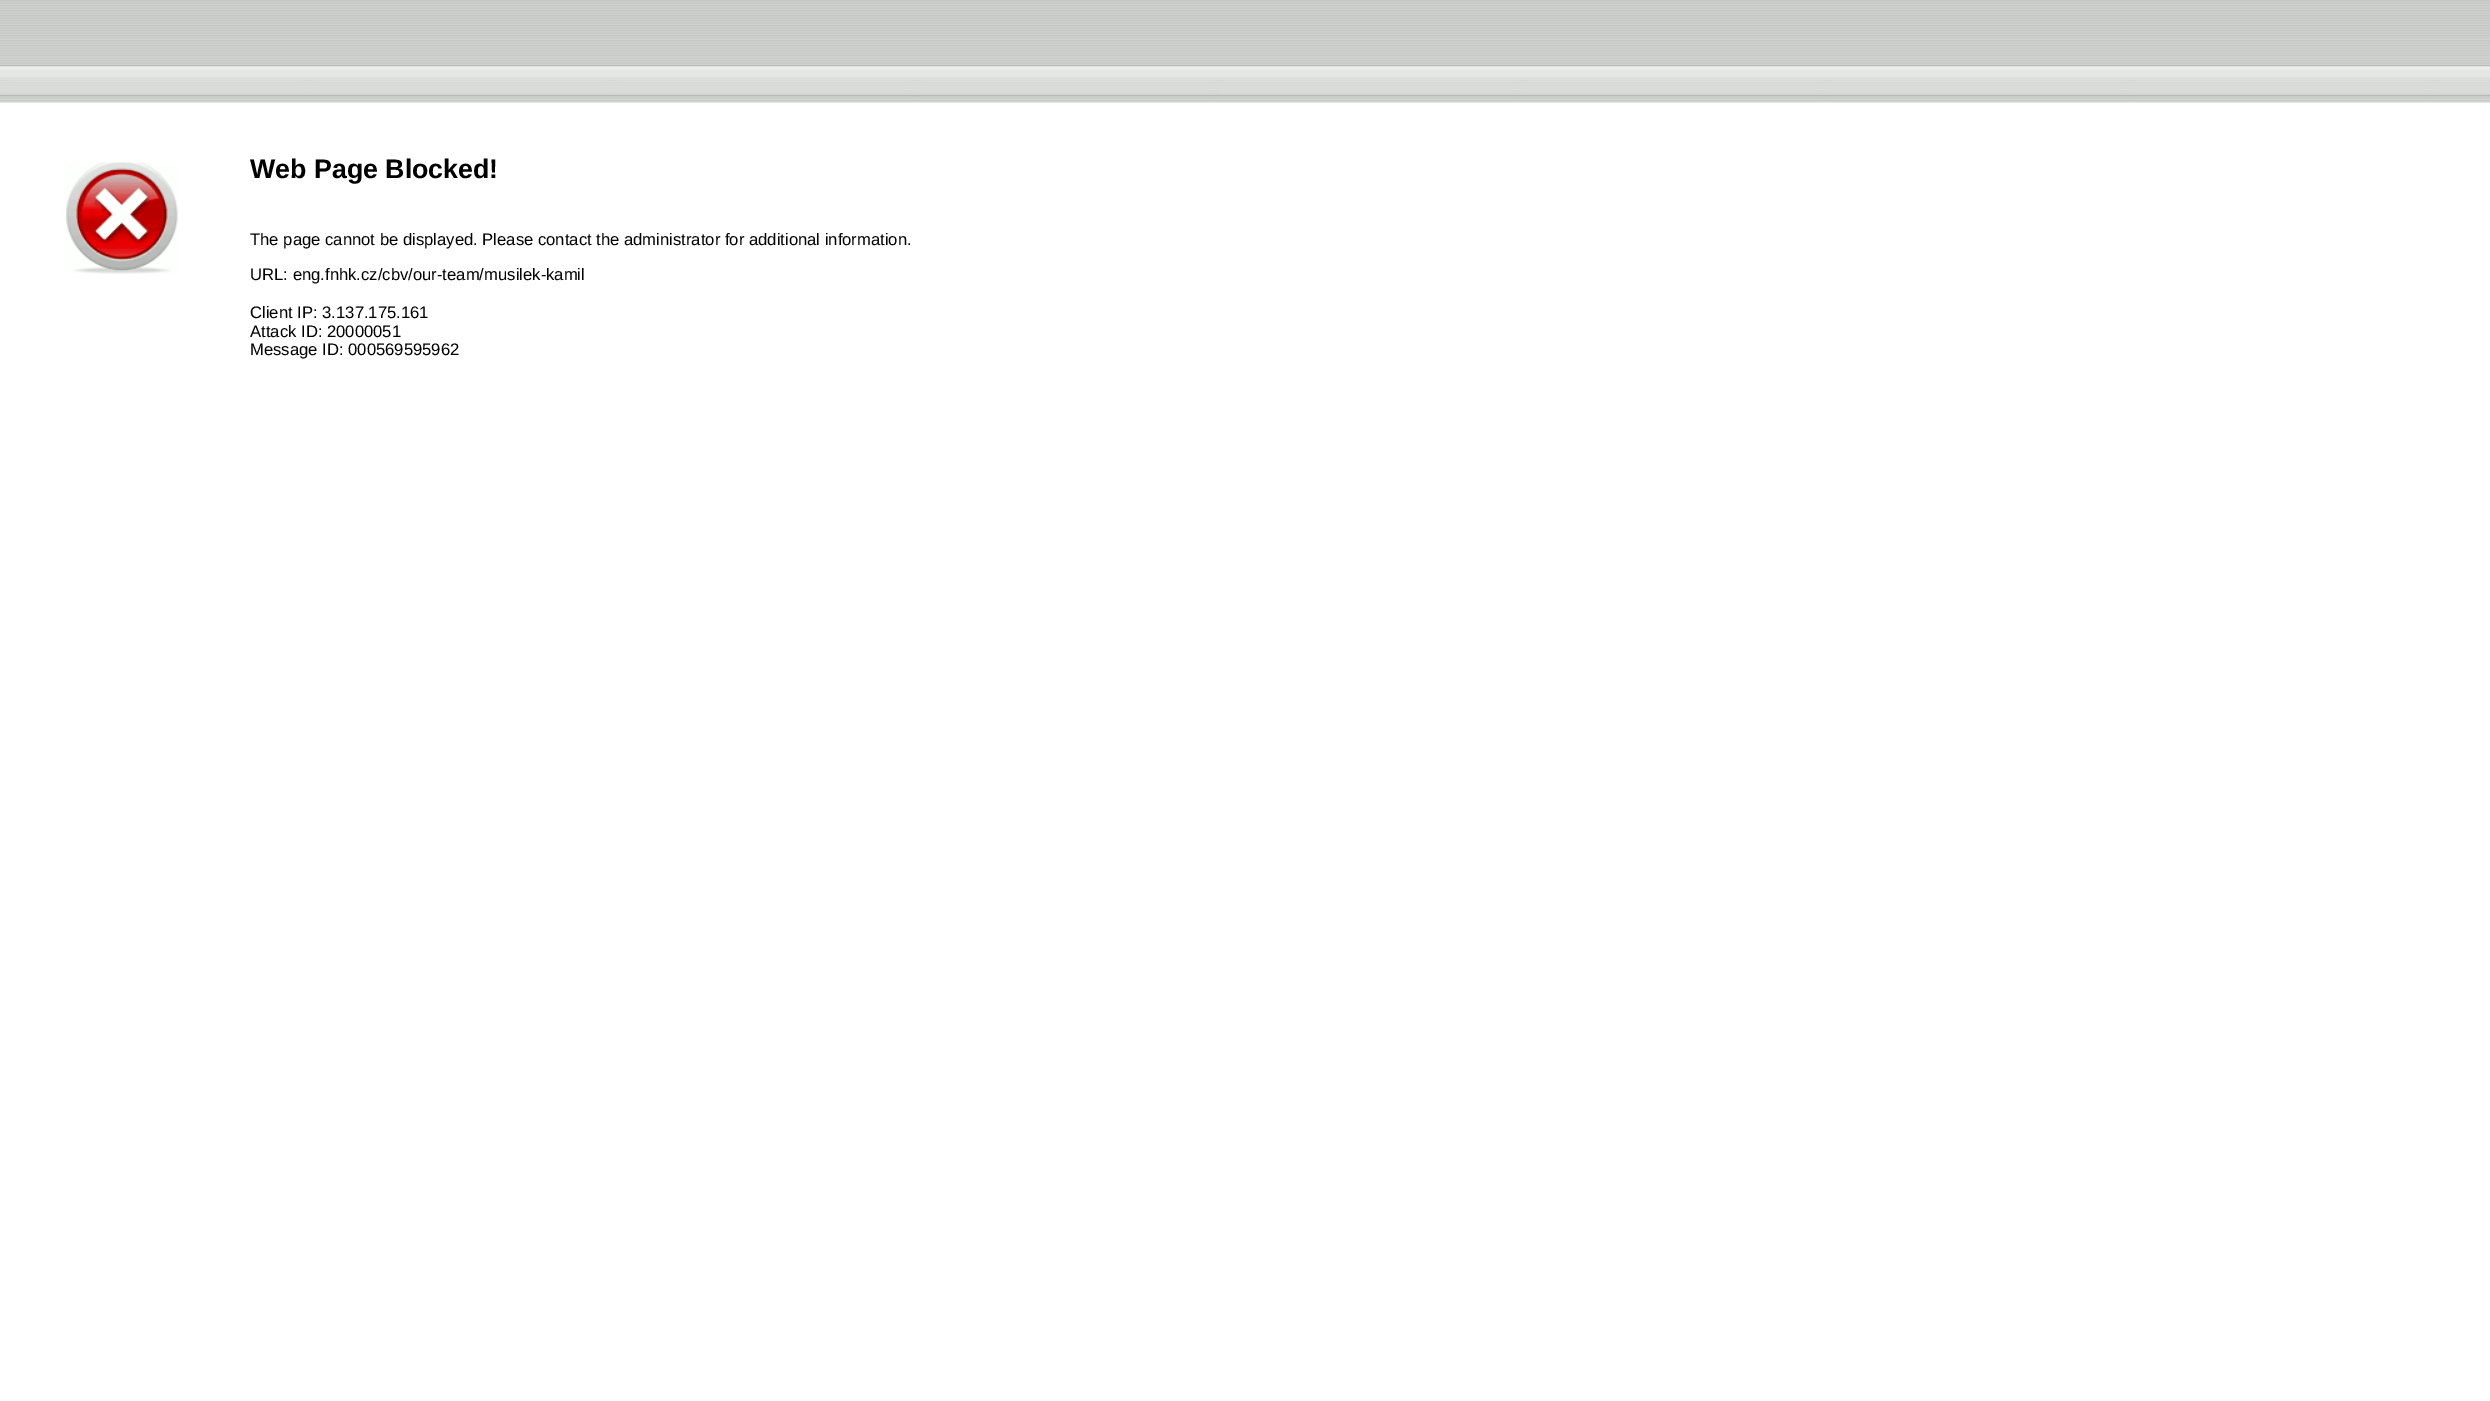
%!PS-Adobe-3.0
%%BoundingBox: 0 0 2490 1401
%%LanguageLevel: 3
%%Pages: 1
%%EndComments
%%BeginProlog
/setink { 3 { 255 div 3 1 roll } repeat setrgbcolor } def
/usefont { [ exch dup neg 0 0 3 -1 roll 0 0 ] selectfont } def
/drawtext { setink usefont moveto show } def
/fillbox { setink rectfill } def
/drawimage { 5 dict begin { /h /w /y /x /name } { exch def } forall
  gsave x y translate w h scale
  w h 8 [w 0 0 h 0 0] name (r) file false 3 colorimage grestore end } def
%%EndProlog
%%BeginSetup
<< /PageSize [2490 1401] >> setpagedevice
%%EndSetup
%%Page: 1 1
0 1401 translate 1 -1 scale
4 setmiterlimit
0 0 2490 1401 255 255 255 fillbox
(assets/img1.rgb) 0 0 2490 103 drawimage
(assets/img2.rgb) 66 162 112 112 drawimage
(Web Page Blocked!) 250 178 /LiberationSans-Bold 26.75 0 0 0 drawtext
(The page cannot be displayed. Please contact the administrator for additional information.) 250 245 /LiberationSans-Regular 16.65 0 0 0 drawtext
(URL: eng.fnhk.cz/cbv/our-team/musilek-kamil) 250 280 /LiberationSans-Regular 16.65 0 0 0 drawtext
(Client IP: 3.137.175.161) 250 318 /LiberationSans-Regular 16.65 0 0 0 drawtext
(Attack ID: 20000051) 250 337 /LiberationSans-Regular 16.65 0 0 0 drawtext
(Message ID: 000569595962) 250 355 /LiberationSans-Regular 16.65 0 0 0 drawtext
showpage
%%EOF
